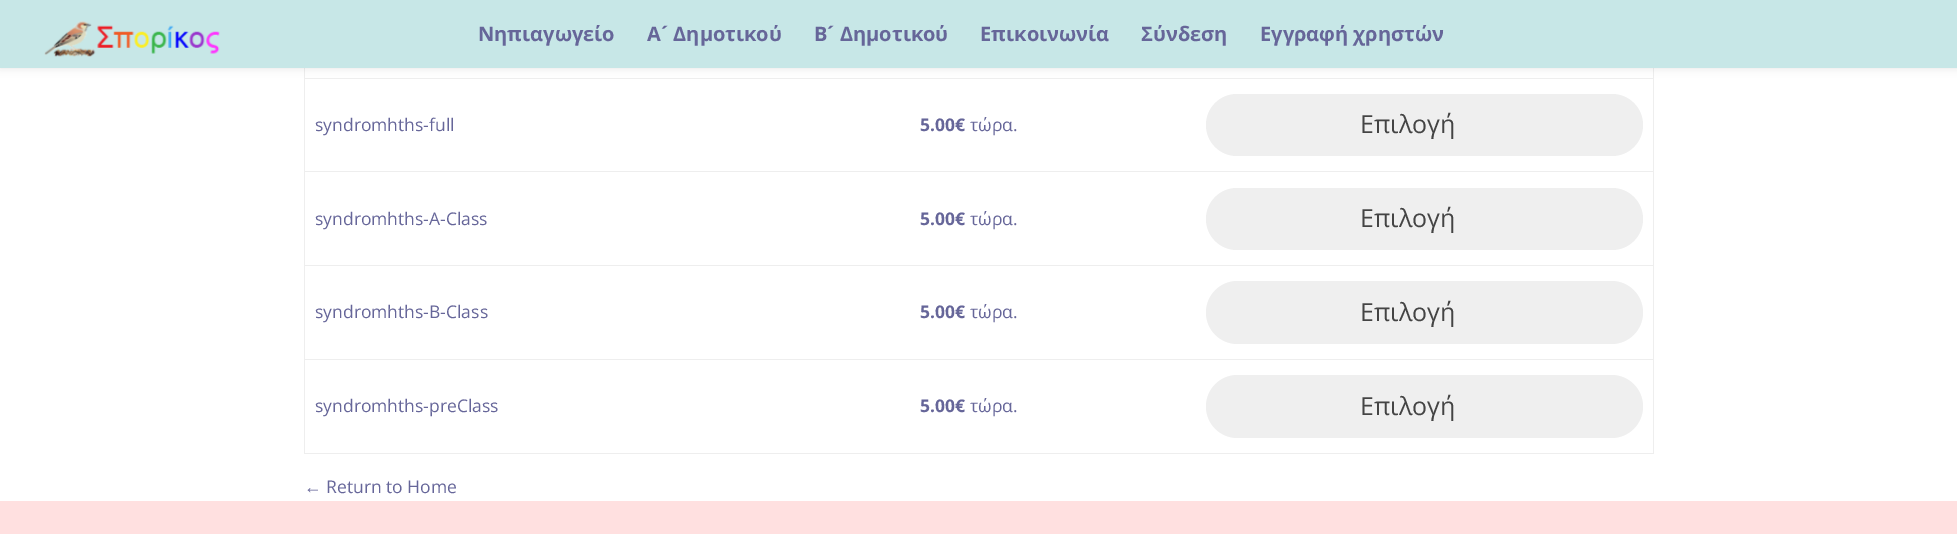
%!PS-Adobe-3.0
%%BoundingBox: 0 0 1957 534
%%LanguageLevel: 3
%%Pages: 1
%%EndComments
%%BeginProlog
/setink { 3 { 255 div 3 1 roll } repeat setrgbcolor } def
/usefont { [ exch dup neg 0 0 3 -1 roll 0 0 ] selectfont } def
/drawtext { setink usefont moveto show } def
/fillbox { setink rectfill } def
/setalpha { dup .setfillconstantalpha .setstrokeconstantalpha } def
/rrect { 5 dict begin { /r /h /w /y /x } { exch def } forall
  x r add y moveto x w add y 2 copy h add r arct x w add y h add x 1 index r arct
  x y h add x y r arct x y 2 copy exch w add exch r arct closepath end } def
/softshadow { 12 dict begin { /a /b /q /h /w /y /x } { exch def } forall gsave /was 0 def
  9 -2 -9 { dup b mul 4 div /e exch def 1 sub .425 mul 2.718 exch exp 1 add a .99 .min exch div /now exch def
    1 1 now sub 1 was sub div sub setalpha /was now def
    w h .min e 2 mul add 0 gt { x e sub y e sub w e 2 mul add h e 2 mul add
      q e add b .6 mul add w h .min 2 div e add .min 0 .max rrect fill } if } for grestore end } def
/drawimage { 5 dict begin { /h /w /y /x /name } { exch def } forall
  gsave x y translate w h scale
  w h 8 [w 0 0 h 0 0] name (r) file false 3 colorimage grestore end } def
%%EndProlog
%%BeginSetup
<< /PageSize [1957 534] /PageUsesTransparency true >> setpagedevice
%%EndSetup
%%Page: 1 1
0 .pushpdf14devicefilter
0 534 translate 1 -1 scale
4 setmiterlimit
0 0 1957 534 255 255 255 fillbox
1653 68 1 386 238 238 238 fillbox
304 453 1350 1 238 238 238 fillbox
304 68 1 386 238 238 238 fillbox
304 78 1350 1 238 238 238 fillbox
0 0 0 setink
0 0 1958 68 0 4.5 0.1 softshadow
0 0 1957 68 199 231 231 fillbox
(assets/img1.rgb) 44 21 176 36 drawimage
(Νηπιαγωγείο) 478 41 /OpenSans-Bold 20 102 102 153 drawtext
(Α´ Δημοτικού) 647 41 /OpenSans-Bold 20 102 102 153 drawtext
(Β´ Δημοτικού) 814 41 /OpenSans-Bold 20 102 102 153 drawtext
(Επικοινωνία) 980 41 /OpenSans-Bold 20 102 102 153 drawtext
(Σύνδεση) 1141 41 /OpenSans-Bold 20 102 102 153 drawtext
(Εγγραφή χρηστών) 1260 41 /OpenSans-Bold 20 102 102 153 drawtext
(syndromhths-full) 315 131 /OpenSans-Regular 17.5 102 102 153 drawtext
(5.00€) 920 131 /OpenSans-Bold 17.5 102 102 153 drawtext
(τώρα.) 970 131 /OpenSans-Regular 17.5 102 102 153 drawtext
239 239 239 setink
1206 94 437 62 31 rrect fill
(Επιλογή) 1360 133 /OpenSans-Regular 25 68 68 68 drawtext
(syndromhths-A-Class) 315 225 /OpenSans-Regular 17.5 102 102 153 drawtext
(5.00€) 920 225 /OpenSans-Bold 17.5 102 102 153 drawtext
(τώρα.) 970 225 /OpenSans-Regular 17.5 102 102 153 drawtext
304 171 1350 1 238 238 238 fillbox
239 239 239 setink
1206 188 437 62 31 rrect fill
(Επιλογή) 1360 227 /OpenSans-Regular 25 68 68 68 drawtext
(syndromhths-B-Class) 315 318 /OpenSans-Regular 17.5 102 102 153 drawtext
(5.00€) 920 318 /OpenSans-Bold 17.5 102 102 153 drawtext
(τώρα.) 970 318 /OpenSans-Regular 17.5 102 102 153 drawtext
304 265 1350 1 238 238 238 fillbox
239 239 239 setink
1206 281 437 63 31.5 rrect fill
(Επιλογή) 1360 321 /OpenSans-Regular 25 68 68 68 drawtext
(syndromhths-preClass) 315 412 /OpenSans-Regular 17.5 102 102 153 drawtext
(5.00€) 920 412 /OpenSans-Bold 17.5 102 102 153 drawtext
(τώρα.) 970 412 /OpenSans-Regular 17.5 102 102 153 drawtext
304 359 1350 1 238 238 238 fillbox
239 239 239 setink
1206 375 437 63 31.5 rrect fill
(Επιλογή) 1360 415 /OpenSans-Regular 25 68 68 68 drawtext
(←) 304 493 /LiberationSans-Regular 17.5 102 102 153 drawtext
(Return to Home) 326 493 /OpenSans-Regular 17.5 102 102 153 drawtext
0 501 1957 33 255 224 224 fillbox
.poppdf14devicefilter showpage
%%EOF
